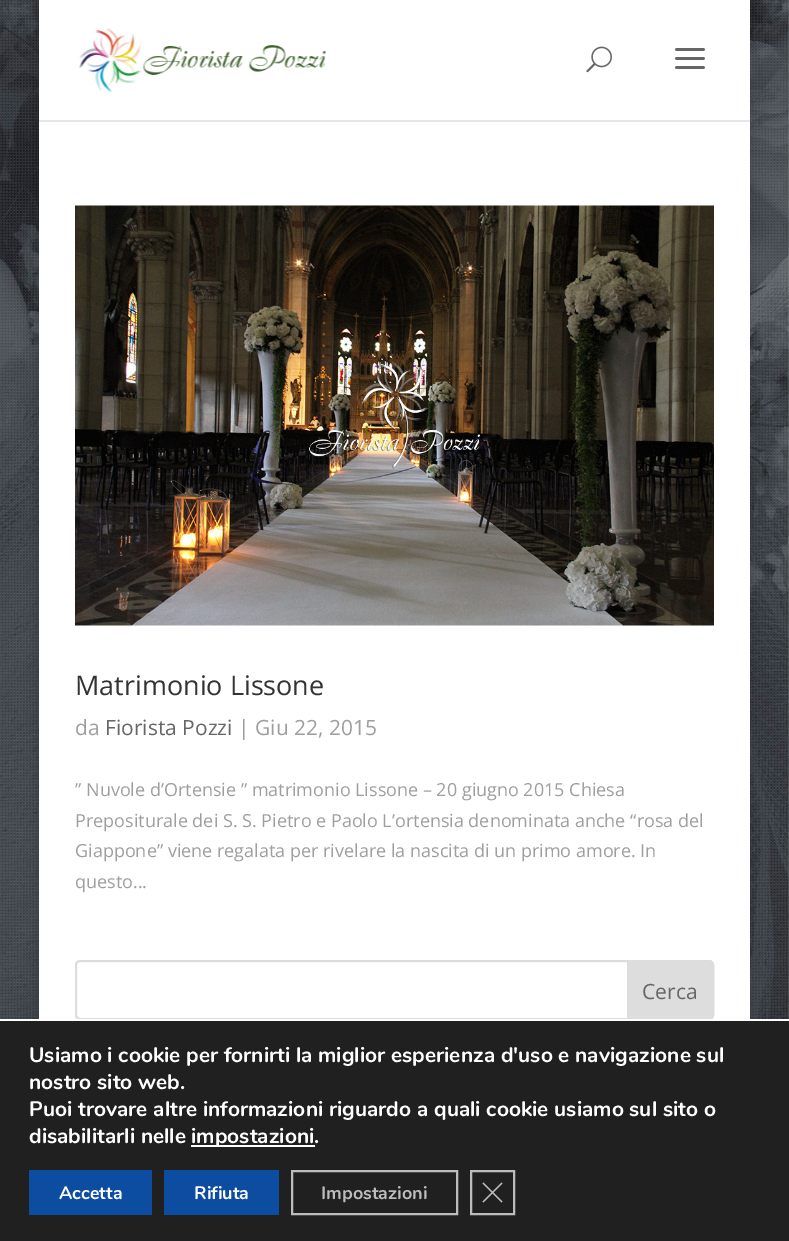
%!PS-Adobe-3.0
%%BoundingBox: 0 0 789 1241
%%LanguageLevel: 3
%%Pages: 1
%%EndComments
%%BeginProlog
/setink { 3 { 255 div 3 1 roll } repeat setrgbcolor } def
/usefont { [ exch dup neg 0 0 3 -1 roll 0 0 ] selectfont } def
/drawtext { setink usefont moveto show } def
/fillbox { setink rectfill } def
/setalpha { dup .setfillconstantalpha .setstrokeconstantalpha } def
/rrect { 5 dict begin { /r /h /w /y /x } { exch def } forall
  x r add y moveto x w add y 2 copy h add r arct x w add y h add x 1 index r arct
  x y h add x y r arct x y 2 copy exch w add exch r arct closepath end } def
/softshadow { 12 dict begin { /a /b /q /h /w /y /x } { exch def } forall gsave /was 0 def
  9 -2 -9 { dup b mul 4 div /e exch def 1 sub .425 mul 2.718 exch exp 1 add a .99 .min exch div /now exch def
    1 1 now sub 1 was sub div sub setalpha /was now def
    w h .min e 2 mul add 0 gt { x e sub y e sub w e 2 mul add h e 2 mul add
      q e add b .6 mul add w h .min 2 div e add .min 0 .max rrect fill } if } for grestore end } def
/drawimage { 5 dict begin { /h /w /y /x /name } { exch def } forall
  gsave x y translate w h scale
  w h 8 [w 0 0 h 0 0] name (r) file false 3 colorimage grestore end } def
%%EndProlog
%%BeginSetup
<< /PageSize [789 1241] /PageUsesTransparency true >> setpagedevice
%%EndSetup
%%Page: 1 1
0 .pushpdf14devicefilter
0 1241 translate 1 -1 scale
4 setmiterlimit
0 0 789 1241 255 255 255 fillbox
(assets/img1.rgb) 0 0 789 1019 drawimage
0 0 0 setink
39 0 711 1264 0 7.5 0.2 softshadow
39 120 711 2 230 230 230 fillbox
39 0 711 120 255 255 255 fillbox
(assets/img2.rgb) 79 28 247 64 drawimage
(assets/img3.rgb) 586 46 26 27 drawimage
(assets/img4.rgb) 675 48 30 21 drawimage
39 122 711 897 255 255 255 fillbox
(assets/img5.rgb) 75 205 639 421 drawimage
(Matrimonio Lissone) 75 695 /OpenSans-Regular 27 51 51 51 drawtext
(da) 75 735 /OpenSans-Regular 21 158 158 158 drawtext
(Fiorista Pozzi) 105 735 /OpenSans-Regular 21 102 102 102 drawtext
(| Giu 22, 2015) 238 735 /OpenSans-Regular 21 158 158 158 drawtext
(” Nuvole d’Ortensie ” matrimonio Lissone – 20 giugno 2015 Chiesa) 75 796 /OpenSans-Regular 18 158 158 158 drawtext
(Prepositurale dei S. S. Pietro e Paolo L’ortensia denominata anche “rosa del) 75 827 /OpenSans-Regular 18 158 158 158 drawtext
(Giappone” viene regalata per rivelare la nascita di un primo amore. In) 75 857 /OpenSans-Regular 18 158 158 158 drawtext
(questo...) 75 888 /OpenSans-Regular 18 158 158 158 drawtext
221 221 221 setink
2 setlinewidth
76 961 637 58 4 rrect stroke
628 961 moveto 709 961 lineto 711 961 713 963 713 965 curveto 713 1015 lineto 713 1017 711 1019 709 1019 curveto 628 1019 lineto closepath gsave fill grestore
stroke
(Cerca) 642 999 /OpenSans-Regular 21 102 102 102 drawtext
0 1021 789 220 32 32 32 fillbox
27 1019 735 2 255 255 255 fillbox
(Usiamo i cookie per fornirti la miglior esperienza d'uso e navigazione sul) 29 1062 /Nunito-Bold 21 255 255 255 drawtext
(nostro sito web.) 29 1089 /Nunito-Bold 21 255 255 255 drawtext
(Puoi trovare altre informazioni riguardo a quali cookie usiamo sul sito o) 29 1116 /Nunito-Bold 21 255 255 255 drawtext
(disabilitarli nelle) 29 1143 /Nunito-Bold 21 255 255 255 drawtext
191 1145 124 2 255 255 255 fillbox
(impostazioni.) 191 1143 /Nunito-Bold 21 255 255 255 drawtext
29 1170 123 45 12 77 162 fillbox
(Accetta) 59 1199 /Nunito-Bold 18 255 255 255 drawtext
164 1170 115 45 12 77 162 fillbox
(Rifiuta) 194 1199 /Nunito-Bold 18 255 255 255 drawtext
188 188 188 setink
292 1171 165 43 rectstroke
(Impostazioni) 321 1199 /Nunito-Bold 18 188 188 188 drawtext
471 1171 43 43 rectstroke
501.5 1182.5 moveto 502.5 1183.5 lineto 483.5 1202.5 lineto 482.5 1201.5 lineto closepath fill
482.5 1183.5 moveto 483.5 1182.5 lineto 502.5 1201.5 lineto 501.5 1202.5 lineto closepath fill
.poppdf14devicefilter showpage
%%EOF
